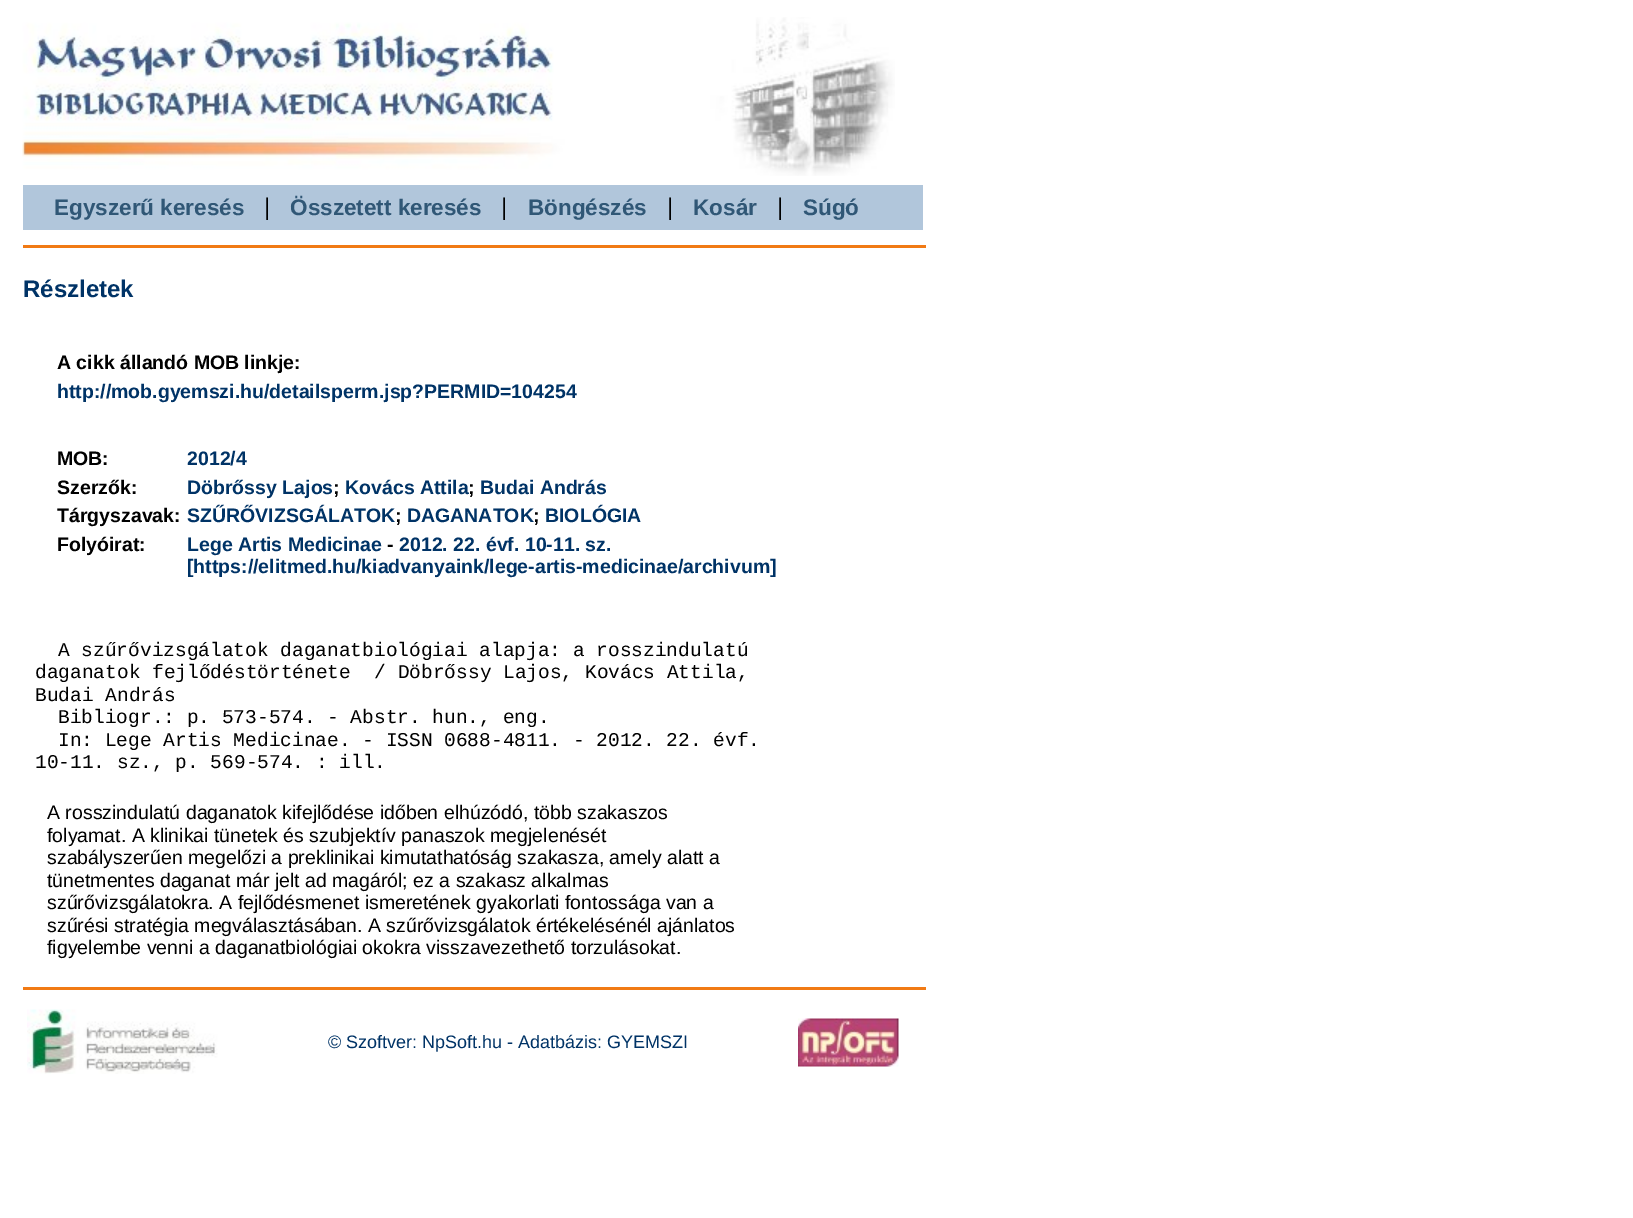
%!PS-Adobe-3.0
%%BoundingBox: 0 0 1633 1218
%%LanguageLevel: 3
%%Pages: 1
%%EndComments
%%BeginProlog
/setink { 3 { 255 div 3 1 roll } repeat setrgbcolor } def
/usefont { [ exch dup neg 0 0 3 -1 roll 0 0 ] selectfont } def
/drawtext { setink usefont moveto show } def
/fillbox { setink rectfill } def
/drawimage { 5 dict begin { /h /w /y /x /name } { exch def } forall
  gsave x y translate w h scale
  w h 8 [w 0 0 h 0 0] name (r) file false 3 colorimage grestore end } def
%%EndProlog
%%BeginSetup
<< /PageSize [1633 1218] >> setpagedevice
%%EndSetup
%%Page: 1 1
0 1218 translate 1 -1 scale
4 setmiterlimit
0 0 1633 1218 255 255 255 fillbox
(assets/img1.rgb) 22 17 873 159 drawimage
23 185 900 45 177 198 219 fillbox
(Egyszerű keresés) 54 215 /LiberationSans-Bold 22.5 48 87 118 drawtext
(|) 264 215 /LiberationSans-Regular 24 0 0 0 drawtext
(Összetett keresés) 290 215 /LiberationSans-Bold 22.5 48 87 118 drawtext
(|) 501 215 /LiberationSans-Regular 24 0 0 0 drawtext
(Böngészés) 528 215 /LiberationSans-Bold 22.5 48 87 118 drawtext
(|) 667 215 /LiberationSans-Regular 24 0 0 0 drawtext
(Kosár) 693 215 /LiberationSans-Bold 22.5 48 87 118 drawtext
(|) 777 215 /LiberationSans-Regular 24 0 0 0 drawtext
(Súgó) 803 215 /LiberationSans-Bold 22.5 48 87 118 drawtext
23 245 903 3 241 122 20 fillbox
(Részletek) 23 297 /LiberationSans-Bold 24 0 51 102 drawtext
(A cikk állandó MOB linkje:) 57 369 /LiberationSans-Bold 19.5 0 0 0 drawtext
(http://mob.gyemszi.hu/detailsperm.jsp?PERMID=104254) 57 398 /LiberationSans-Bold 19.5 0 51 102 drawtext
(MOB:) 57 465 /LiberationSans-Bold 19.5 0 0 0 drawtext
(2012/4) 187 465 /LiberationSans-Bold 19.5 0 51 102 drawtext
(Szerzők:) 57 494 /LiberationSans-Bold 19.5 0 0 0 drawtext
(Döbrőssy Lajos) 187 494 /LiberationSans-Bold 19.5 0 51 102 drawtext
(;) 333 494 /LiberationSans-Bold 19.5 0 0 0 drawtext
(Kovács Attila) 345 494 /LiberationSans-Bold 19.5 0 51 102 drawtext
(;) 468 494 /LiberationSans-Bold 19.5 0 0 0 drawtext
(Budai András) 480 494 /LiberationSans-Bold 19.5 0 51 102 drawtext
(Tárgyszavak:) 57 522 /LiberationSans-Bold 19.5 0 0 0 drawtext
(SZŰRŐVIZSGÁLATOK) 187 522 /LiberationSans-Bold 19.5 0 51 102 drawtext
(;) 395 522 /LiberationSans-Bold 19.5 0 0 0 drawtext
(DAGANATOK) 407 522 /LiberationSans-Bold 19.5 0 51 102 drawtext
(;) 533 522 /LiberationSans-Bold 19.5 0 0 0 drawtext
(BIOLÓGIA) 545 522 /LiberationSans-Bold 19.5 0 51 102 drawtext
(Folyóirat:) 57 551 /LiberationSans-Bold 19.5 0 0 0 drawtext
(Lege Artis Medicinae) 187 551 /LiberationSans-Bold 19.5 0 51 102 drawtext
(-) 387 551 /LiberationSans-Bold 19.5 0 0 0 drawtext
(2012. 22. évf. 10-11. sz.) 399 551 /LiberationSans-Bold 19.5 0 51 102 drawtext
([https://elitmed.hu/kiadvanyaink/lege-artis-medicinae/archivum]) 187 573 /LiberationSans-Bold 19.5 0 51 102 drawtext
(A szűrővizsgálatok daganatbiológiai alapja: a rosszindulatú) 58 656 /LiberationMono-Regular 19.5 0 0 0 drawtext
(daganatok fejlődéstörténete  / Döbrőssy Lajos, Kovács Attila,) 35 678 /LiberationMono-Regular 19.5 0 0 0 drawtext
(Budai András) 35 701 /LiberationMono-Regular 19.5 0 0 0 drawtext
(Bibliogr.: p. 573-574. - Abstr. hun., eng.) 58 723 /LiberationMono-Regular 19.5 0 0 0 drawtext
(In: Lege Artis Medicinae. - ISSN 0688-4811. - 2012. 22. évf.) 58 746 /LiberationMono-Regular 19.5 0 0 0 drawtext
(10-11. sz., p. 569-574. : ill.) 35 768 /LiberationMono-Regular 19.5 0 0 0 drawtext
(A rosszindulatú daganatok kifejlődése időben elhúzódó, több szakaszos) 47 819 /LiberationSans-Regular 19.5 0 0 0 drawtext
(folyamat. A klinikai tünetek és szubjektív panaszok megjelenését) 47 842 /LiberationSans-Regular 19.5 0 0 0 drawtext
(szabályszerűen megelőzi a preklinikai kimutathatóság szakasza, amely alatt a) 47 864 /LiberationSans-Regular 19.5 0 0 0 drawtext
(tünetmentes daganat már jelt ad magáról; ez a szakasz alkalmas) 47 887 /LiberationSans-Regular 19.5 0 0 0 drawtext
(szűrővizsgálatokra. A fejlődésmenet ismeretének gyakorlati fontossága van a) 47 909 /LiberationSans-Regular 19.5 0 0 0 drawtext
(szűrési stratégia megválasztásában. A szűrővizsgálatok értékelésénél ajánlatos) 47 932 /LiberationSans-Regular 19.5 0 0 0 drawtext
(figyelembe venni a daganatbiológiai okokra visszavezethető torzulásokat.) 47 954 /LiberationSans-Regular 19.5 0 0 0 drawtext
23 987 903 3 241 122 20 fillbox
(assets/img2.rgb) 27 1009 191 65 drawimage
(© Szoftver: NpSoft.hu - Adatbázis: GYEMSZI) 328 1048 /LiberationSans-Regular 18 0 51 102 drawtext
(assets/img3.rgb) 798 1018 101 49 drawimage
showpage
%%EOF
